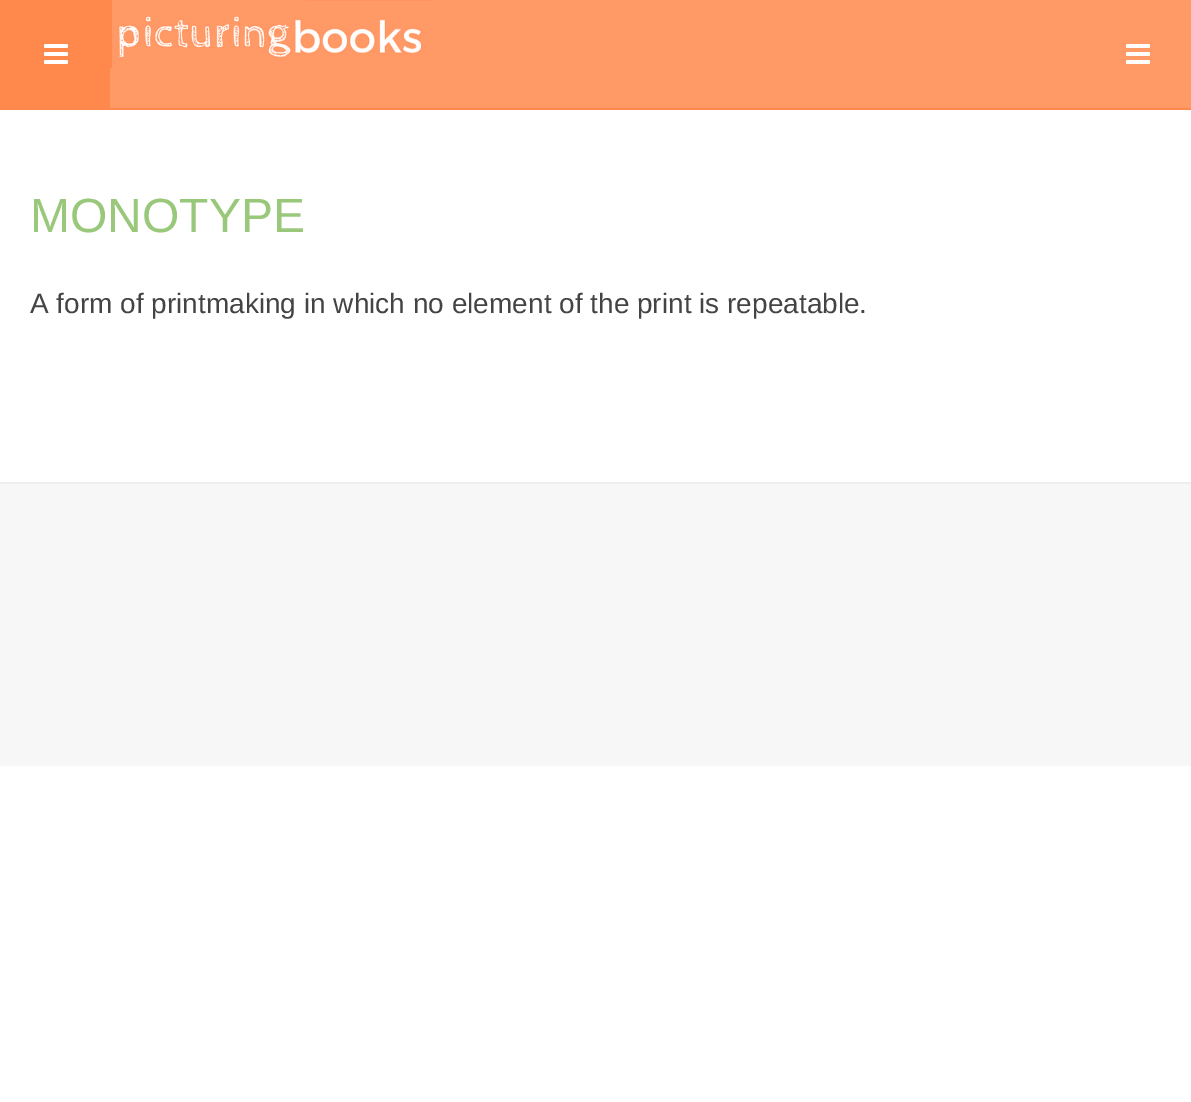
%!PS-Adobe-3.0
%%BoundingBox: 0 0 1191 1102
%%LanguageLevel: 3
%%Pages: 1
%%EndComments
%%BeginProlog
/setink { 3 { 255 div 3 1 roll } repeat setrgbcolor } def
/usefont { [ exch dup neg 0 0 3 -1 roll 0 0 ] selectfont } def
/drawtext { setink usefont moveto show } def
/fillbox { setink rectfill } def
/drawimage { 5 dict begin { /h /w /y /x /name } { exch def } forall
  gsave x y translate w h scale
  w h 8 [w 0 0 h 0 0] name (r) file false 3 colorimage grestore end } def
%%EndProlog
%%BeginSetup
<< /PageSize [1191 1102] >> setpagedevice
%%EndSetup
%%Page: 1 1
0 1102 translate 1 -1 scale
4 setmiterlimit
0 0 1191 1102 255 255 255 fillbox
110 0 1081 108 255 153 102 fillbox
110 108 1081 2 255 136 76 fillbox
0 0 110 110 255 136 76 fillbox
(assets/img1.rgb) 44 44 24 20 drawimage
110 0 2 68 255 136 76 fillbox
(assets/img2.rgb) 118 0 314 58 drawimage
(assets/img3.rgb) 1126 44 24 20 drawimage
(MONOTYPE) 30 232 /LiberationSans-Regular 48 153 200 123 drawtext
(A form of printmaking in which no element of the print is repeatable.) 30 313 /LiberationSans-Regular 28 68 68 68 drawtext
0 484 1191 282 247 247 247 fillbox
0 482 1191 2 238 238 238 fillbox
showpage
%%EOF
